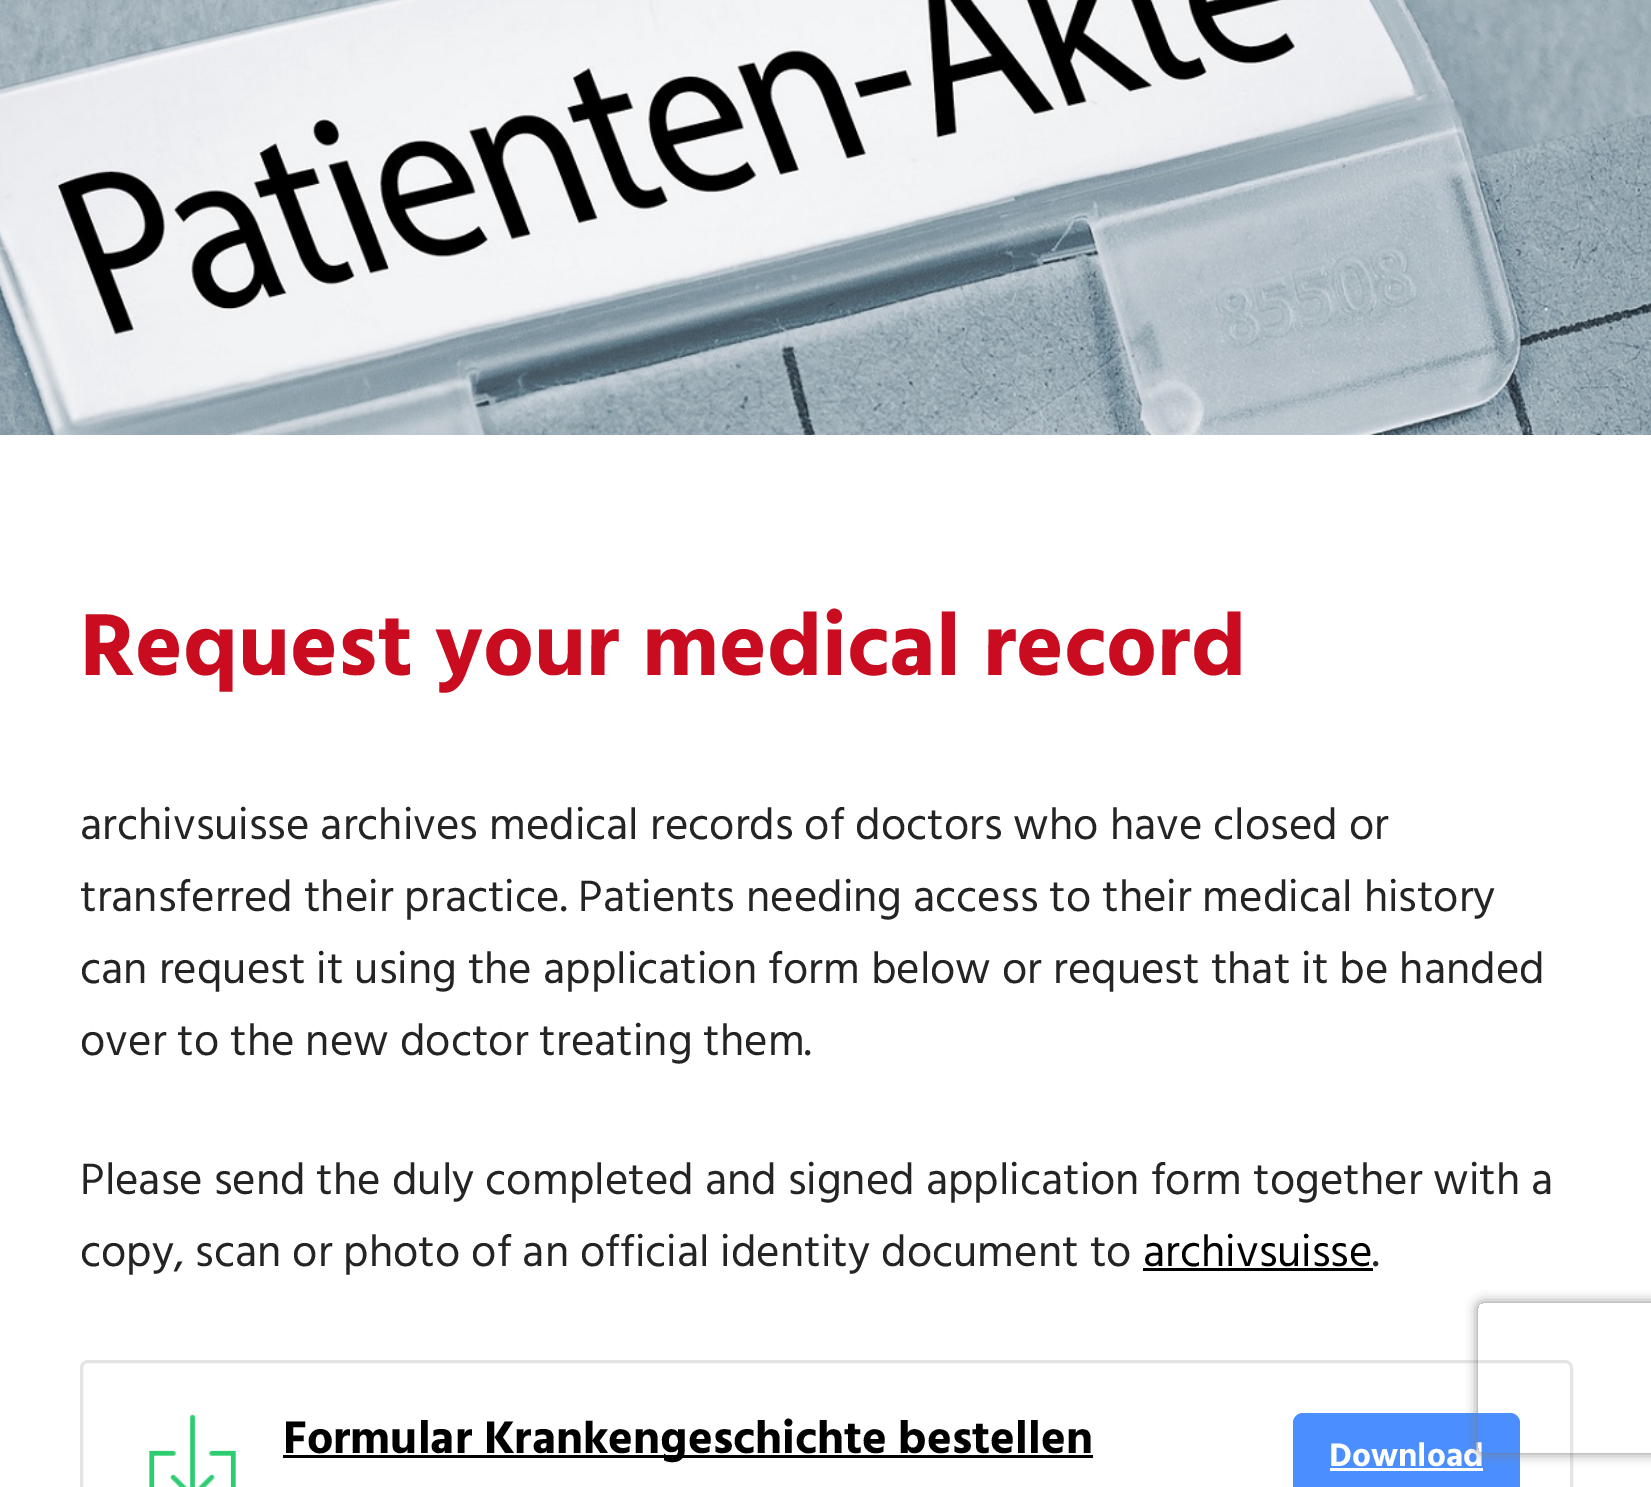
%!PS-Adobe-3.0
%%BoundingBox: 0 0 1651 1487
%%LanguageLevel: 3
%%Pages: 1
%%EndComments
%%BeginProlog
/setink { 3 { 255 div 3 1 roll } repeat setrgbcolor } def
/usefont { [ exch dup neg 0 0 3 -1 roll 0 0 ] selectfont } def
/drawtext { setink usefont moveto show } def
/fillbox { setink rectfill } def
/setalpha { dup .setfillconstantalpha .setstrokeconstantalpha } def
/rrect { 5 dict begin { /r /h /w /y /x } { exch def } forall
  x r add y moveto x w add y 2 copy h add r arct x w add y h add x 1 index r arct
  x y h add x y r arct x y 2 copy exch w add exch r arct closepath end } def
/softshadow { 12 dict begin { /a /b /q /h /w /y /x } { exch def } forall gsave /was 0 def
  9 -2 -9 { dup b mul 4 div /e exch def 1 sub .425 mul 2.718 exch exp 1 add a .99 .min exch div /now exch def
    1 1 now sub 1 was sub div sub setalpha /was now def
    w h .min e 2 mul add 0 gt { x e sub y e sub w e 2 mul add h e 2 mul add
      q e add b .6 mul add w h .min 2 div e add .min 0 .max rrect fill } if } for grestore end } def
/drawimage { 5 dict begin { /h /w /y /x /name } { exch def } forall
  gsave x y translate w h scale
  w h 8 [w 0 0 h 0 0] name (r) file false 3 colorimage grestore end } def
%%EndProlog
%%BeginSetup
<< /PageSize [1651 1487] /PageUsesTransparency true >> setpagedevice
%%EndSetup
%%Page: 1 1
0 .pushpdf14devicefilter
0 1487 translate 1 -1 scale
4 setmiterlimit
0 0 1651 1487 255 255 255 fillbox
(assets/img1.rgb) 0 0 1651 435 drawimage
(Request your medical record) 80 675 /Hind-Bold 90 201 12 31 drawtext
(archivsuisse archives medical records of doctors who have closed or) 80 839 /Hind-Regular 45 36 36 36 drawtext
(transferred their practice. Patients needing access to their medical history) 80 911 /Hind-Regular 45 36 36 36 drawtext
(can request it using the application form below or request that it be handed) 80 983 /Hind-Regular 45 36 36 36 drawtext
(over to the new doctor treating them.) 80 1055 /Hind-Regular 45 36 36 36 drawtext
(Please send the duly completed and signed application form together with a) 80 1194 /Hind-Regular 45 36 36 36 drawtext
(copy, scan or photo of an official identity document to) 80 1266 /Hind-Regular 45 36 36 36 drawtext
(archivsuisse) 1143 1266 /Hind-Regular 45 0 0 0 drawtext
1143 1268 230 3 0 0 0 fillbox
(.) 1372 1266 /Hind-Regular 45 36 36 36 drawtext
229 229 229 setink
3 setlinewidth
81.5 1361.5 1490 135 6.5 rrect stroke
(assets/img2.rgb) 149 1414 87 73 drawimage
283 1455 810 3 0 0 0 fillbox
(Formular Krankengeschichte bestellen) 283 1453 /Hind-Bold 46.7 0 0 0 drawtext
74 142 255 setink
1293 1413 227 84 10 rrect fill
(Download) 1329 1466 /Hind-Bold 33.5 255 255 255 drawtext
1330 1468 153 3 255 255 255 fillbox
gsave
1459 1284 moveto 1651 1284 lineto 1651 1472 lineto 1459 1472 lineto closepath 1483 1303 moveto 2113 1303 lineto 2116 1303 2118 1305 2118 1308 curveto 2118 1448 lineto 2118 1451 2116 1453 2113 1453 curveto 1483 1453 lineto 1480 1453 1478 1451 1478 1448 curveto 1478 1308 lineto 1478 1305 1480 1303 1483 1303 curveto closepath eoclip newpath
128 128 128 setink
1478 1303 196 150 5 6 1 softshadow
grestore
.poppdf14devicefilter showpage
%%EOF
